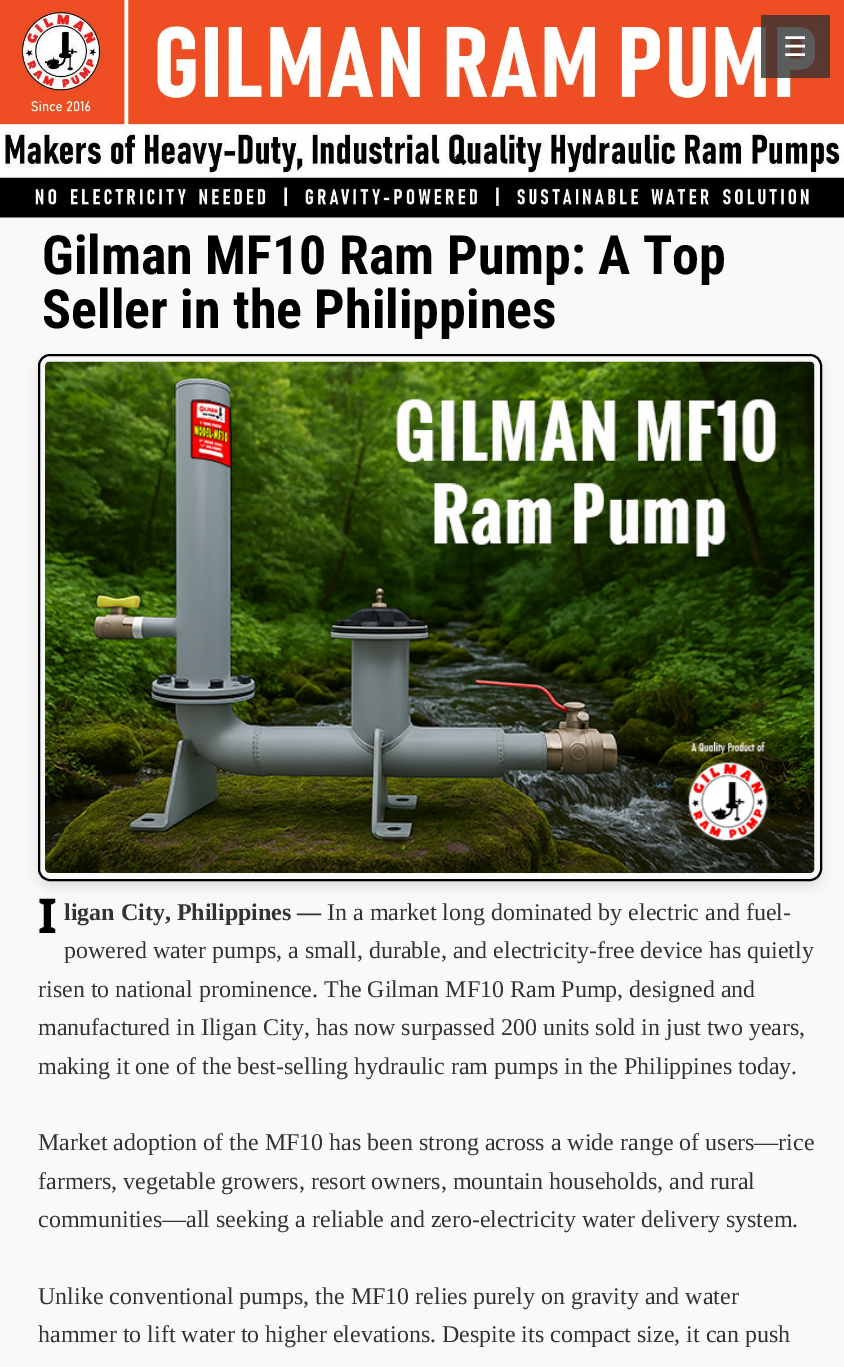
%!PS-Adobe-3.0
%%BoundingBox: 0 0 844 1367
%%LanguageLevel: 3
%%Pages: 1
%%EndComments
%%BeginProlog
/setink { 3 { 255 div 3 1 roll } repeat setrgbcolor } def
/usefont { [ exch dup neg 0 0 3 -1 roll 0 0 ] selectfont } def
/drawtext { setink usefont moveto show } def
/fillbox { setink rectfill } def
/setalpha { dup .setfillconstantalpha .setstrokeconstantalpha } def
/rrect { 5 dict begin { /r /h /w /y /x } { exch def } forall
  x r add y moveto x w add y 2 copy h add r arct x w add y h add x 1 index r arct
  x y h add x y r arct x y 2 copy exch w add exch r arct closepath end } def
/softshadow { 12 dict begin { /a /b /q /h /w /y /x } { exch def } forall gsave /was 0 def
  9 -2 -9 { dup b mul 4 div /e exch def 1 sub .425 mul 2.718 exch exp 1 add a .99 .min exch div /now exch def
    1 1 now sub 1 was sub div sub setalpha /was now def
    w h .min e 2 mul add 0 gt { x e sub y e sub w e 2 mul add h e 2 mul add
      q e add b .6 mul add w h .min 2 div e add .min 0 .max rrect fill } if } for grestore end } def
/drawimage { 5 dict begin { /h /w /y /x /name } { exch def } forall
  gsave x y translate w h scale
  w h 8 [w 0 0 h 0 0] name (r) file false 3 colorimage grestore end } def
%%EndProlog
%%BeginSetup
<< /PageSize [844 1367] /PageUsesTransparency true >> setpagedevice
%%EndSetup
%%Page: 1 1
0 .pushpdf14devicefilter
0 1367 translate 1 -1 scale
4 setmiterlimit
0 0 844 1367 249 249 249 fillbox
(assets/img1.rgb) 0 0 844 218 drawimage
0.8 setalpha
761 15 69 63 51 51 51 fillbox
1 setalpha
(☰) 783 56 /DejaVuSans-Regular 27 255 255 255 drawtext
(Gilman MF10 Ram Pump: A Top) 42 274 /RobotoCondensed-Bold 54 0 0 0 drawtext
(Seller in the Philippines) 42 328 /RobotoCondensed-Bold 54 0 0 0 drawtext
gsave
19 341 moveto 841 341 lineto 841 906 lineto 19 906 lineto closepath 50 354 moveto 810 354 lineto 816.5 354 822 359.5 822 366 curveto 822 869 lineto 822 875.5 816.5 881 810 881 curveto 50 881 lineto 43.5 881 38 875.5 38 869 curveto 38 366 lineto 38 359.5 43.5 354 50 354 curveto closepath eoclip newpath
38 360 784 527 12 6 0.1 softshadow
grestore
2 setlinewidth
39 355 782 525 11 rrect stroke
(assets/img2.rgb) 45 361 770 512 drawimage
(I) 38 933 /NotoSans-Bold 48 0 0 0 drawtext
(ligan City, Philippines —) 64 920 /LiberationSerif-Bold 24 51 51 51 drawtext
(In a market long dominated by electric and fuel-) 327 920 /LiberationSerif-Regular 24 51 51 51 drawtext
(powered water pumps, a small, durable, and electricity-free device has quietly) 64 958 /LiberationSerif-Regular 24 51 51 51 drawtext
(risen to national prominence. The Gilman MF10 Ram Pump, designed and) 38 997 /LiberationSerif-Regular 24 51 51 51 drawtext
(manufactured in Iligan City, has now surpassed 200 units sold in just two years,) 38 1035 /LiberationSerif-Regular 24 51 51 51 drawtext
(making it one of the best-selling hydraulic ram pumps in the Philippines today.) 38 1074 /LiberationSerif-Regular 24 51 51 51 drawtext
(Market adoption of the MF10 has been strong across a wide range of users—rice) 38 1150 /LiberationSerif-Regular 24 51 51 51 drawtext
(farmers, vegetable growers, resort owners, mountain households, and rural) 38 1189 /LiberationSerif-Regular 24 51 51 51 drawtext
(communities—all seeking a reliable and zero-electricity water delivery system.) 38 1227 /LiberationSerif-Regular 24 51 51 51 drawtext
(Unlike conventional pumps, the MF10 relies purely on gravity and water) 38 1304 /LiberationSerif-Regular 24 51 51 51 drawtext
(hammer to lift water to higher elevations. Despite its compact size, it can push) 38 1342 /LiberationSerif-Regular 24 51 51 51 drawtext
.poppdf14devicefilter showpage
%%EOF
